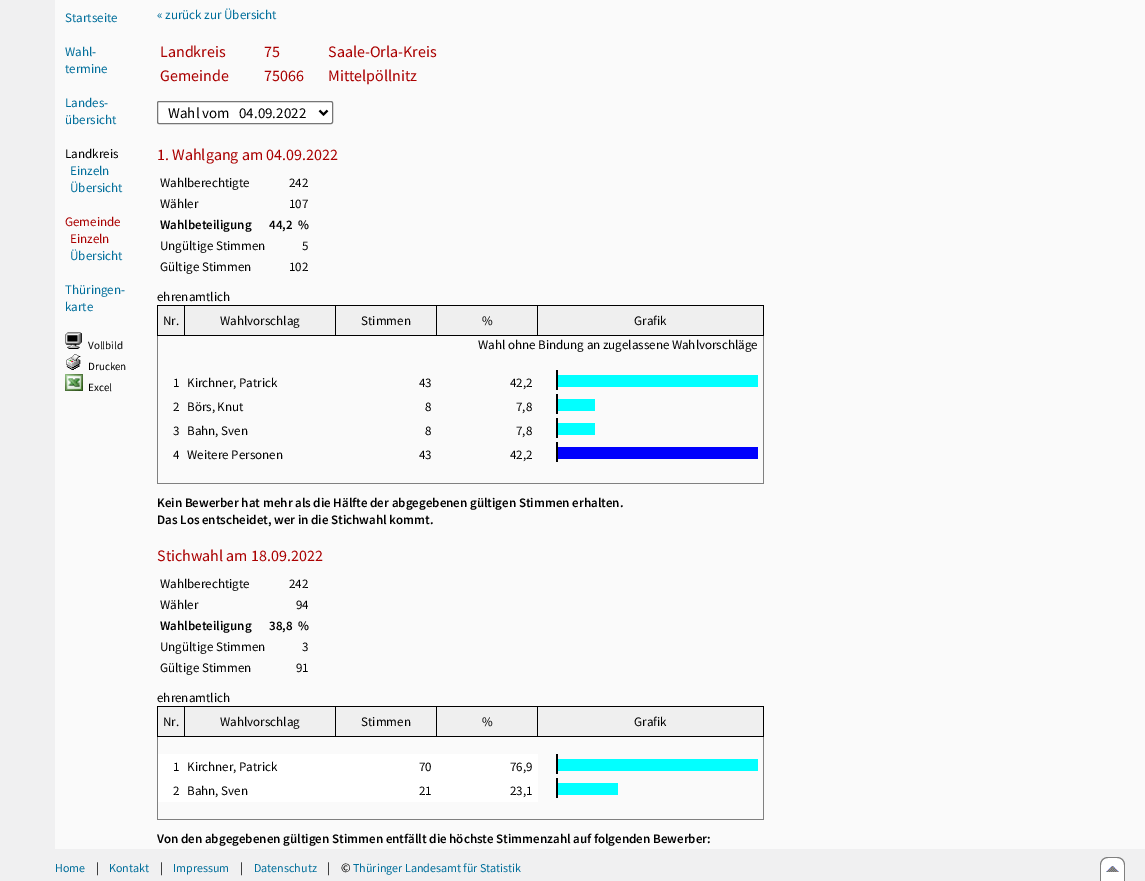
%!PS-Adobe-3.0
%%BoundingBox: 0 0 1145 881
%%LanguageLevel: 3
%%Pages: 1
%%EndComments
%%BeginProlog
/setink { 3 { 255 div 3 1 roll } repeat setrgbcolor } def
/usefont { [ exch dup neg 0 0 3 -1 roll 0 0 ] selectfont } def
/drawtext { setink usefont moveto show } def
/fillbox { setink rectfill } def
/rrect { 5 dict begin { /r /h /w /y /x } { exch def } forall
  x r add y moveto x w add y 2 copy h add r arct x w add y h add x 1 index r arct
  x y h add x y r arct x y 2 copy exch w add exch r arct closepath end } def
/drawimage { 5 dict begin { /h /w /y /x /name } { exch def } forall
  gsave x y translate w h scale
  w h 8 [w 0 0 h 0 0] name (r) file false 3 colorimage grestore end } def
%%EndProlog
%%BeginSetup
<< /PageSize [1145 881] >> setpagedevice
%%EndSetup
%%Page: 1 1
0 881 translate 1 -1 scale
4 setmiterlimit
0 0 1145 881 240 240 241 fillbox
55 0 1090 849 250 250 250 fillbox
(Startseite) 65 22 /SourceSansPro-Regular 13 0 110 155 drawtext
(Wahl-) 65 56 /SourceSansPro-Regular 13 0 110 155 drawtext
(termine) 65 73 /SourceSansPro-Regular 13 0 110 155 drawtext
(Landes-) 65 107 /SourceSansPro-Regular 13 0 110 155 drawtext
(übersicht) 65 124 /SourceSansPro-Regular 13 0 110 155 drawtext
(Landkreis) 65 158 /SourceSansPro-Regular 13 0 0 0 drawtext
(Einzeln) 70 175 /SourceSansPro-Regular 13 0 110 155 drawtext
(Übersicht) 70 192 /SourceSansPro-Regular 13 0 110 155 drawtext
(Gemeinde) 65 226 /SourceSansPro-Regular 13 170 0 0 drawtext
(Einzeln) 70 243 /SourceSansPro-Regular 13 170 0 0 drawtext
(Übersicht) 70 260 /SourceSansPro-Regular 13 0 110 155 drawtext
(Thüringen-) 65 294 /SourceSansPro-Regular 13 0 110 155 drawtext
(karte) 65 311 /SourceSansPro-Regular 13 0 110 155 drawtext
(assets/img1.rgb) 65 332 17 17 drawimage
(Vollbild) 88 349 /SourceSansPro-Regular 11 0 0 0 drawtext
(assets/img2.rgb) 66 354 15 16 drawimage
(Drucken) 88 370 /SourceSansPro-Regular 11 0 0 0 drawtext
(assets/img3.rgb) 65 374 18 17 drawimage
(Excel) 88 391 /SourceSansPro-Regular 11 0 0 0 drawtext
(« zurück zur Übersicht) 157 19 /SourceSansPro-Regular 13 0 110 155 drawtext
(Landkreis) 160 57 /SourceSansPro-Regular 16 170 0 0 drawtext
(75) 264 57 /SourceSansPro-Regular 16 170 0 0 drawtext
(Saale-Orla-Kreis) 328 57 /SourceSansPro-Regular 16 170 0 0 drawtext
(Gemeinde) 160 81 /SourceSansPro-Regular 16 170 0 0 drawtext
(75066) 264 81 /SourceSansPro-Regular 16 170 0 0 drawtext
(Mittelpöllnitz) 328 81 /SourceSansPro-Regular 16 170 0 0 drawtext
255 255 255 setink
157.5 101.5 175 22 1.5 rrect gsave fill grestore
118 118 118 setink
stroke
0 0 0 setink
2 setlinewidth
319.5 110.5 moveto 323.5 114.5 lineto 327.5 110.5 lineto stroke
(Wahl vom   04.09.2022) 168 118 /SourceSansPro-Regular 15 0 0 0 drawtext
(1. Wahlgang am 04.09.2022) 157 160 /SourceSansPro-Regular 16 170 0 0 drawtext
(Wahlberechtigte) 160 187 /SourceSansPro-Regular 13 0 0 0 drawtext
(242) 289 187 /SourceSansPro-Regular 13 0 0 0 drawtext
(Wähler) 160 208 /SourceSansPro-Regular 13 0 0 0 drawtext
(107) 289 208 /SourceSansPro-Regular 13 0 0 0 drawtext
(Wahlbeteiligung) 160 229 /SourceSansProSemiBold-SemiBold 13 0 0 0 drawtext
(44,2  %) 269 229 /SourceSansProSemiBold-SemiBold 13 0 0 0 drawtext
(Ungültige Stimmen) 160 250 /SourceSansPro-Regular 13 0 0 0 drawtext
(5) 302 250 /SourceSansPro-Regular 13 0 0 0 drawtext
(Gültige Stimmen) 160 271 /SourceSansPro-Regular 13 0 0 0 drawtext
(102) 289 271 /SourceSansPro-Regular 13 0 0 0 drawtext
(ehrenamtlich) 157 301 /SourceSansPro-Regular 13 0 0 0 drawtext
763 336 1 148 128 128 128 fillbox
157 483 607 1 128 128 128 fillbox
157 336 1 148 128 128 128 fillbox
158 306 26 29 239 239 239 fillbox
537 305 227 1 0 0 0 fillbox
763 305 1 31 0 0 0 fillbox
537 335 227 1 0 0 0 fillbox
537 305 1 31 0 0 0 fillbox
436 305 102 1 0 0 0 fillbox
436 335 102 1 0 0 0 fillbox
436 305 1 31 0 0 0 fillbox
335 305 102 1 0 0 0 fillbox
335 335 102 1 0 0 0 fillbox
335 305 1 31 0 0 0 fillbox
184 305 152 1 0 0 0 fillbox
184 335 152 1 0 0 0 fillbox
184 305 1 31 0 0 0 fillbox
157 305 28 1 0 0 0 fillbox
157 335 28 1 0 0 0 fillbox
157 305 1 31 0 0 0 fillbox
(Nr.) 163 325 /SourceSansPro-Regular 13 0 0 0 drawtext
185 306 150 29 239 239 239 fillbox
(Wahlvorschlag) 220 325 /SourceSansPro-Regular 13 0 0 0 drawtext
336 306 100 29 239 239 239 fillbox
(Stimmen) 361 325 /SourceSansPro-Regular 13 0 0 0 drawtext
437 306 100 29 239 239 239 fillbox
(%) 482 325 /SourceSansPro-Regular 13 0 0 0 drawtext
538 306 225 29 239 239 239 fillbox
(Grafik) 634 325 /SourceSansPro-Regular 13 0 0 0 drawtext
(Wahl ohne Bindung an zugelassene Wahlvorschläge) 478 349 /SourceSansPro-Regular 13 0 0 0 drawtext
(1) 173 387 /SourceSansPro-Regular 13 0 0 0 drawtext
(Kirchner, Patrick) 187 387 /SourceSansPro-Regular 13 0 0 0 drawtext
(43) 419 387 /SourceSansPro-Regular 13 0 0 0 drawtext
(42,2) 510 387 /SourceSansPro-Regular 13 0 0 0 drawtext
556 370 2 20 0 0 0 fillbox
558 375 200 12 2 255 255 fillbox
(2) 173 411 /SourceSansPro-Regular 13 0 0 0 drawtext
(Börs, Knut) 187 411 /SourceSansPro-Regular 13 0 0 0 drawtext
(8) 425 411 /SourceSansPro-Regular 13 0 0 0 drawtext
(7,8) 516 411 /SourceSansPro-Regular 13 0 0 0 drawtext
556 394 2 20 0 0 0 fillbox
558 399 37 12 2 255 255 fillbox
(3) 173 435 /SourceSansPro-Regular 13 0 0 0 drawtext
(Bahn, Sven) 187 435 /SourceSansPro-Regular 13 0 0 0 drawtext
(8) 425 435 /SourceSansPro-Regular 13 0 0 0 drawtext
(7,8) 516 435 /SourceSansPro-Regular 13 0 0 0 drawtext
556 418 2 20 0 0 0 fillbox
558 423 37 12 2 255 255 fillbox
(4) 173 459 /SourceSansPro-Regular 13 0 0 0 drawtext
(Weitere Personen) 187 459 /SourceSansPro-Regular 13 0 0 0 drawtext
(43) 419 459 /SourceSansPro-Regular 13 0 0 0 drawtext
(42,2) 510 459 /SourceSansPro-Regular 13 0 0 0 drawtext
556 442 2 20 0 0 0 fillbox
558 447 200 12 0 0 253 fillbox
(Kein Bewerber hat mehr als die Hälfte der abgegebenen gültigen Stimmen erhalten.) 157 507 /SourceSansProSemiBold-SemiBold 13 0 0 0 drawtext
(Das Los entscheidet, wer in die Stichwahl kommt.) 157 524 /SourceSansProSemiBold-SemiBold 13 0 0 0 drawtext
(Stichwahl am 18.09.2022) 157 561 /SourceSansPro-Regular 16 170 0 0 drawtext
(Wahlberechtigte) 160 588 /SourceSansPro-Regular 13 0 0 0 drawtext
(242) 289 588 /SourceSansPro-Regular 13 0 0 0 drawtext
(Wähler) 160 609 /SourceSansPro-Regular 13 0 0 0 drawtext
(94) 296 609 /SourceSansPro-Regular 13 0 0 0 drawtext
(Wahlbeteiligung) 160 630 /SourceSansProSemiBold-SemiBold 13 0 0 0 drawtext
(38,8  %) 269 630 /SourceSansProSemiBold-SemiBold 13 0 0 0 drawtext
(Ungültige Stimmen) 160 651 /SourceSansPro-Regular 13 0 0 0 drawtext
(3) 302 651 /SourceSansPro-Regular 13 0 0 0 drawtext
(Gültige Stimmen) 160 672 /SourceSansPro-Regular 13 0 0 0 drawtext
(91) 296 672 /SourceSansPro-Regular 13 0 0 0 drawtext
(ehrenamtlich) 157 702 /SourceSansPro-Regular 13 0 0 0 drawtext
763 737 1 83 128 128 128 fillbox
157 819 607 1 128 128 128 fillbox
157 737 1 83 128 128 128 fillbox
158 707 26 29 239 239 239 fillbox
537 706 227 1 0 0 0 fillbox
763 706 1 31 0 0 0 fillbox
537 736 227 1 0 0 0 fillbox
537 706 1 31 0 0 0 fillbox
436 706 102 1 0 0 0 fillbox
436 736 102 1 0 0 0 fillbox
436 706 1 31 0 0 0 fillbox
335 706 102 1 0 0 0 fillbox
335 736 102 1 0 0 0 fillbox
335 706 1 31 0 0 0 fillbox
184 706 152 1 0 0 0 fillbox
184 736 152 1 0 0 0 fillbox
184 706 1 31 0 0 0 fillbox
157 706 28 1 0 0 0 fillbox
157 736 28 1 0 0 0 fillbox
157 706 1 31 0 0 0 fillbox
(Nr.) 163 726 /SourceSansPro-Regular 13 0 0 0 drawtext
185 707 150 29 239 239 239 fillbox
(Wahlvorschlag) 220 726 /SourceSansPro-Regular 13 0 0 0 drawtext
336 707 100 29 239 239 239 fillbox
(Stimmen) 361 726 /SourceSansPro-Regular 13 0 0 0 drawtext
437 707 100 29 239 239 239 fillbox
(%) 482 726 /SourceSansPro-Regular 13 0 0 0 drawtext
538 707 225 29 239 239 239 fillbox
(Grafik) 634 726 /SourceSansPro-Regular 13 0 0 0 drawtext
158 754 380 24 255 255 255 fillbox
(1) 173 771 /SourceSansPro-Regular 13 0 0 0 drawtext
(Kirchner, Patrick) 187 771 /SourceSansPro-Regular 13 0 0 0 drawtext
(70) 419 771 /SourceSansPro-Regular 13 0 0 0 drawtext
(76,9) 510 771 /SourceSansPro-Regular 13 0 0 0 drawtext
556 754 2 20 0 0 0 fillbox
558 759 200 12 2 255 255 fillbox
158 778 380 24 255 255 255 fillbox
(2) 173 795 /SourceSansPro-Regular 13 0 0 0 drawtext
(Bahn, Sven) 187 795 /SourceSansPro-Regular 13 0 0 0 drawtext
(21) 419 795 /SourceSansPro-Regular 13 0 0 0 drawtext
(23,1) 510 795 /SourceSansPro-Regular 13 0 0 0 drawtext
556 778 2 20 0 0 0 fillbox
558 783 60 12 2 255 255 fillbox
(Von den abgegebenen gültigen Stimmen entfällt die höchste Stimmenzahl auf folgenden Bewerber:) 157 843 /SourceSansProSemiBold-SemiBold 13 0 0 0 drawtext
(Home) 55 872 /SourceSansPro-Regular 12 0 110 155 drawtext
(|) 96 872 /SourceSansPro-Regular 13 0 0 0 drawtext
(Kontakt) 109 872 /SourceSansPro-Regular 12 0 110 155 drawtext
(|) 160 872 /SourceSansPro-Regular 13 0 0 0 drawtext
(Impressum) 173 872 /SourceSansPro-Regular 12 0 110 155 drawtext
(|) 240 872 /SourceSansPro-Regular 13 0 0 0 drawtext
(Datenschutz) 254 872 /SourceSansPro-Regular 12 0 110 155 drawtext
(|    ©) 327 872 /SourceSansPro-Regular 13 0 0 0 drawtext
(Thüringer Landesamt für Statistik) 353 872 /SourceSansPro-Regular 12 0 110 155 drawtext
255 255 255 setink
1108 858 moveto 1117 858 lineto 1121 858 1124 861 1124 865 curveto 1124 881 lineto 1101 881 lineto 1101 865 lineto 1101 861 1104 858 1108 858 curveto closepath fill
128 128 128 setink
1108 857 moveto 1117 857 lineto 1121.5 857 1125 860.5 1125 865 curveto 1125 881 lineto 1100 881 lineto 1100 865 lineto 1100 860.5 1103.5 857 1108 857 curveto closepath 1108 858 moveto 1117 858 lineto 1121 858 1124 861 1124 865 curveto 1124 881 lineto 1101 881 lineto 1101 865 lineto 1101 861 1104 858 1108 858 curveto closepath eofill
(assets/img4.rgb) 1106 866 13 6 drawimage
showpage
%%EOF
